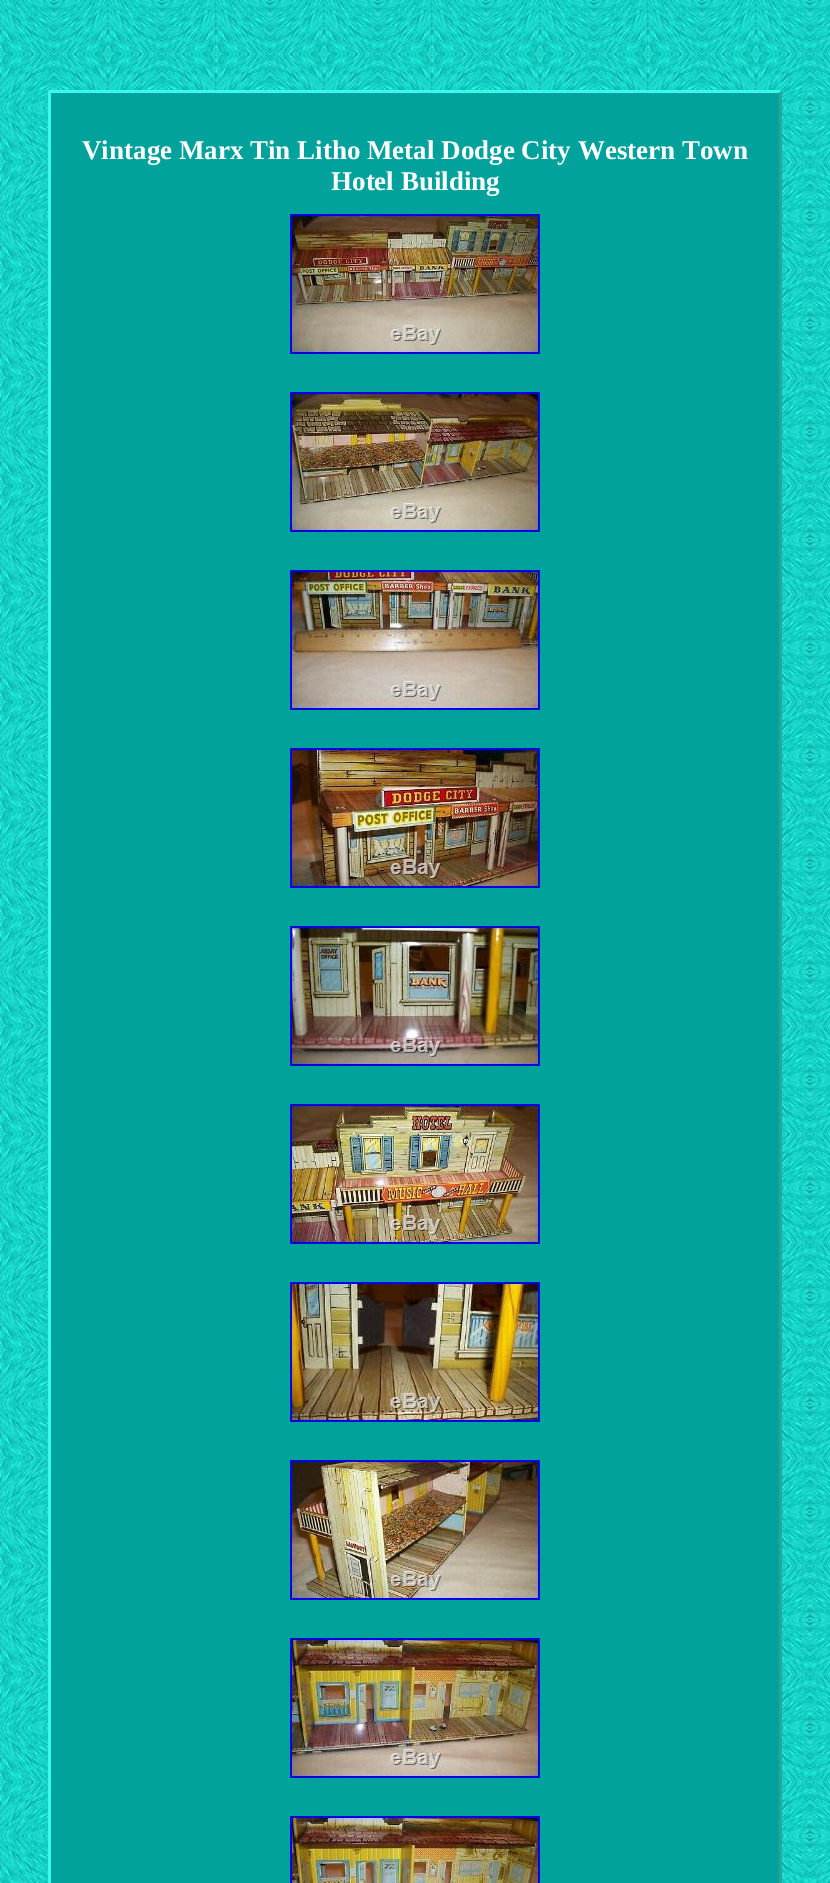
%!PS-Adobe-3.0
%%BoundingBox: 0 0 830 1883
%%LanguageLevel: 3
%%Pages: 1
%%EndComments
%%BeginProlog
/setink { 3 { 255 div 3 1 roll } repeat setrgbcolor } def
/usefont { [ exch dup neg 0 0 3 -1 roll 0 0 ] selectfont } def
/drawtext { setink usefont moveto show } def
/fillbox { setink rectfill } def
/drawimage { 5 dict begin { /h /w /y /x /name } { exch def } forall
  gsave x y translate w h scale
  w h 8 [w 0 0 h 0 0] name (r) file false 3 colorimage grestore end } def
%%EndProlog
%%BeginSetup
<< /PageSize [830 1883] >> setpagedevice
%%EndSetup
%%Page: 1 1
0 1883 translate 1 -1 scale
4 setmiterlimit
0 0 830 1883 255 255 255 fillbox
(assets/img1.rgb) 0 0 830 1883 drawimage
48 90 734 1793 0 162 155 fillbox
60 247 236 setink
48 90 moveto 782 90 lineto 779 93 lineto 51 93 lineto closepath fill
40 165 157 setink
782 90 moveto 782 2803 lineto 779 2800 lineto 779 93 lineto closepath fill
60 247 236 setink
48 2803 moveto 48 90 lineto 51 93 lineto 51 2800 lineto closepath fill
(Vintage Marx Tin Litho Metal Dodge City Western Town) 82 159 /LiberationSerif-Bold 27 255 255 255 drawtext
(Hotel Building) 331 190 /LiberationSerif-Bold 27 255 255 255 drawtext
(assets/img2.rgb) 290 214 250 140 drawimage
(assets/img3.rgb) 290 392 250 140 drawimage
(assets/img4.rgb) 290 570 250 140 drawimage
(assets/img5.rgb) 290 748 250 140 drawimage
(assets/img6.rgb) 290 926 250 140 drawimage
(assets/img7.rgb) 290 1104 250 140 drawimage
(assets/img8.rgb) 290 1282 250 140 drawimage
(assets/img9.rgb) 290 1460 250 140 drawimage
(assets/img10.rgb) 290 1638 250 140 drawimage
(assets/img11.rgb) 290 1816 250 67 drawimage
showpage
%%EOF
